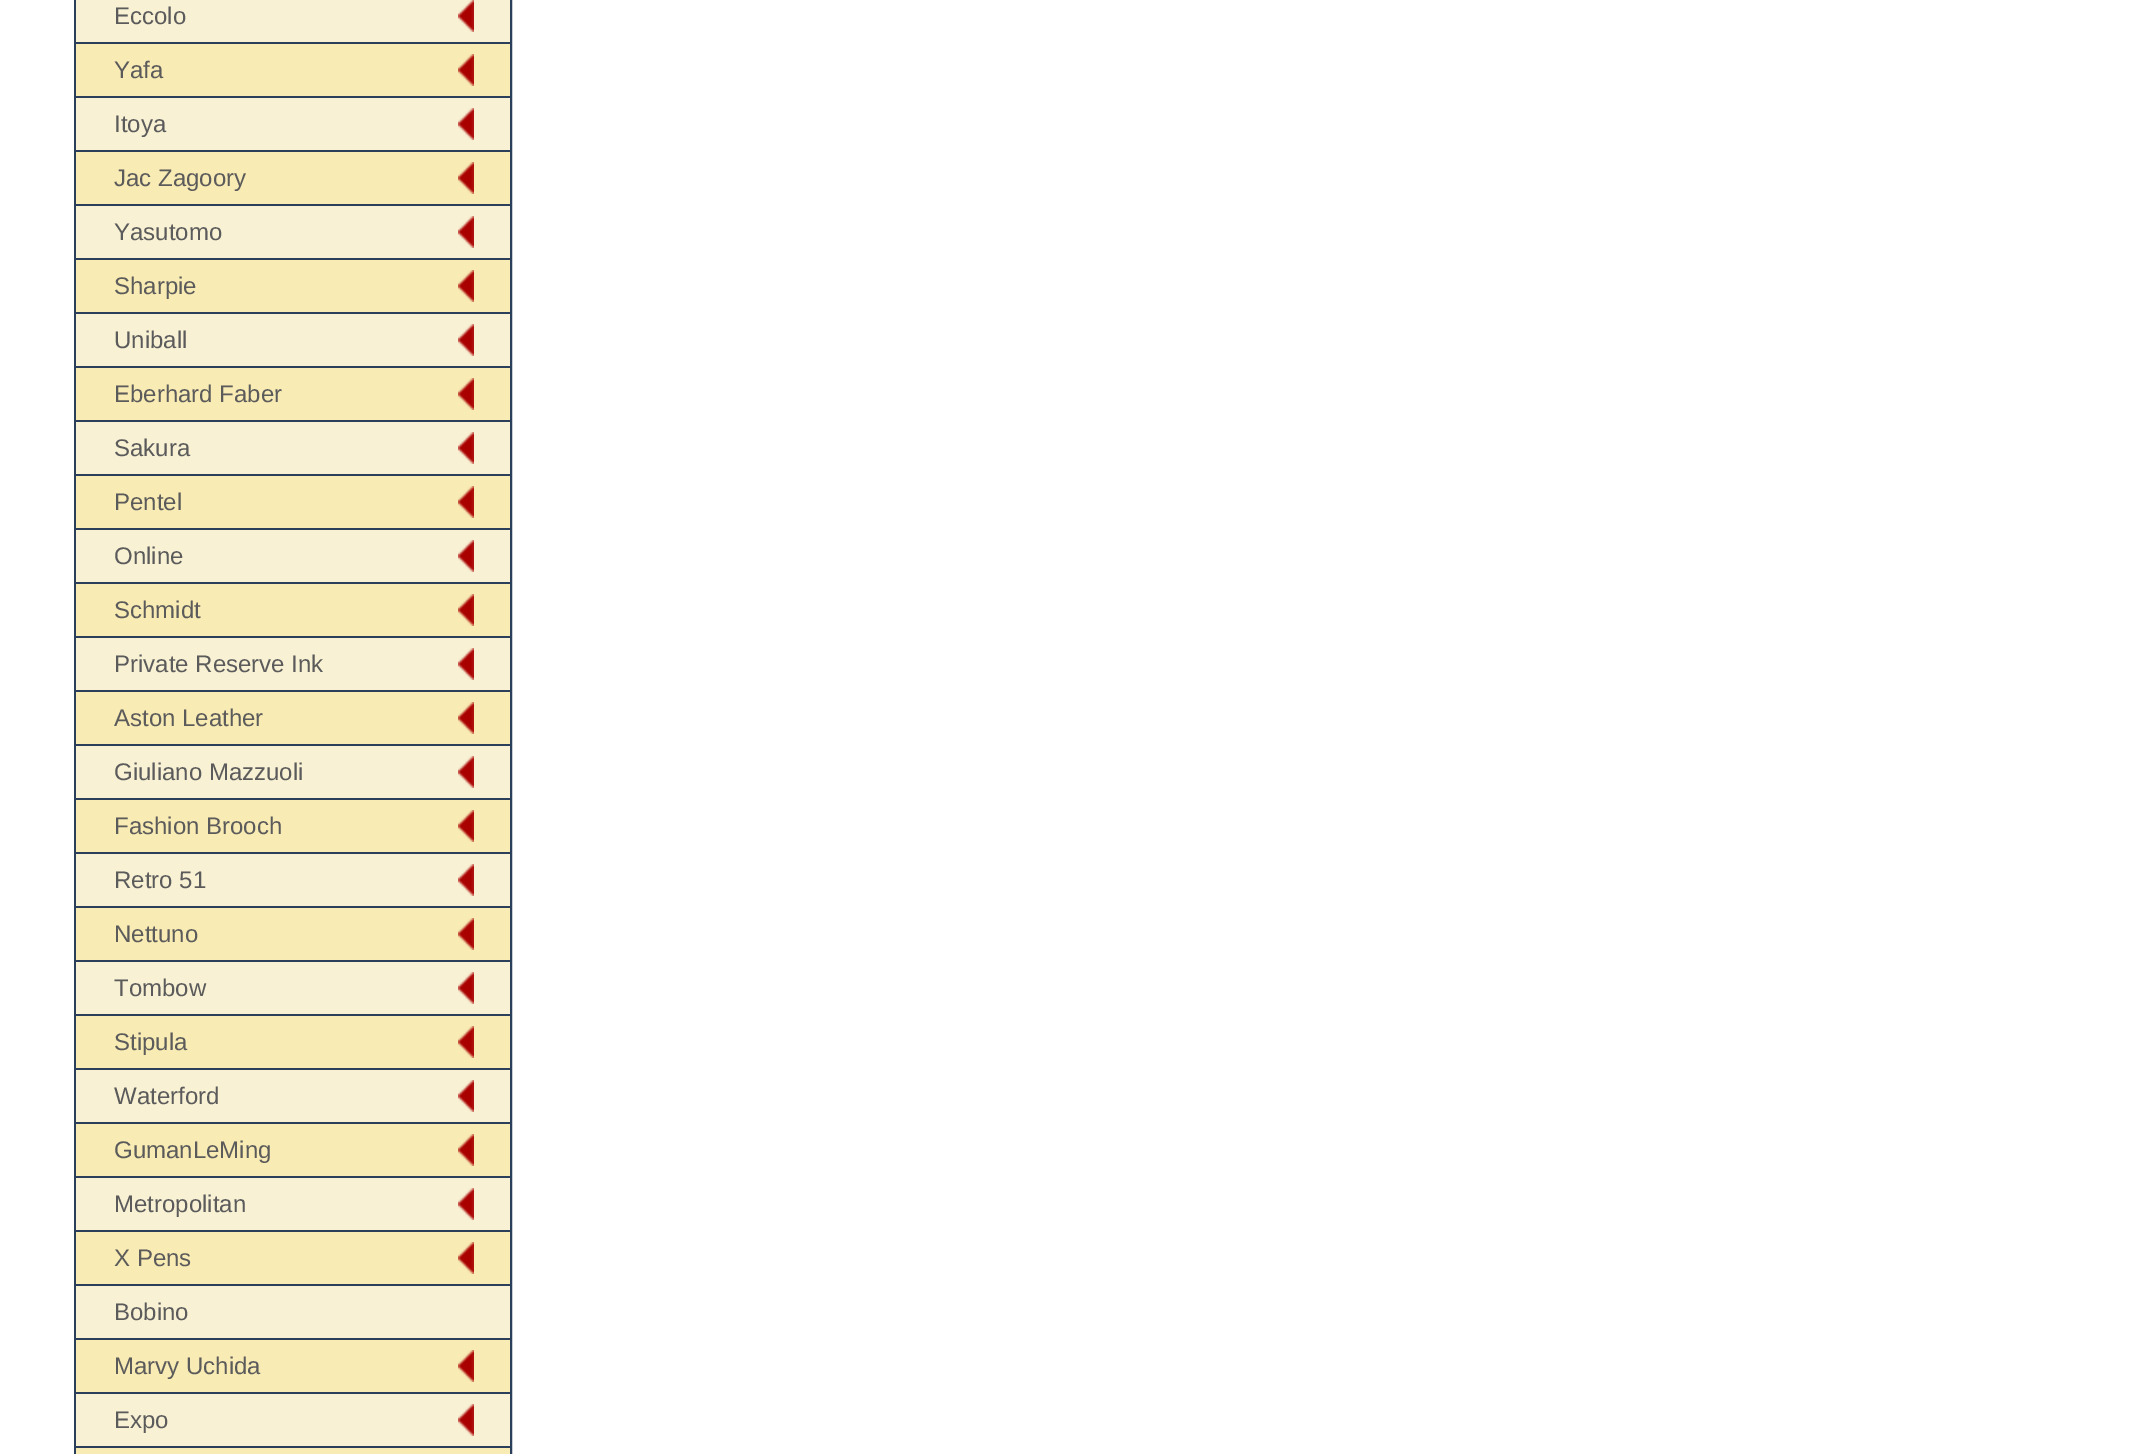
%!PS-Adobe-3.0
%%BoundingBox: 0 0 2139 1454
%%LanguageLevel: 3
%%Pages: 1
%%EndComments
%%BeginProlog
/setink { 3 { 255 div 3 1 roll } repeat setrgbcolor } def
/usefont { [ exch dup neg 0 0 3 -1 roll 0 0 ] selectfont } def
/drawtext { setink usefont moveto show } def
/fillbox { setink rectfill } def
/drawimage { 5 dict begin { /h /w /y /x /name } { exch def } forall
  gsave x y translate w h scale
  w h 8 [w 0 0 h 0 0] name (r) file false 3 colorimage grestore end } def
%%EndProlog
%%BeginSetup
<< /PageSize [2139 1454] >> setpagedevice
%%EndSetup
%%Page: 1 1
0 1454 translate 1 -1 scale
4 setmiterlimit
0 0 2139 1454 255 255 255 fillbox
43 63 90 setink
2 setlinewidth
75 -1 436 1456 rectstroke
76 0 434 42 248 241 212 fillbox
76 42 434 2 43 63 90 fillbox
(Eccolo) 114 24 /LiberationSans-Regular 24 92 91 91 drawtext
(assets/img1.rgb) 458 0 16 32 drawimage
76 44 434 52 248 235 180 fillbox
76 96 434 2 43 63 90 fillbox
(Yafa) 114 78 /LiberationSans-Regular 24 92 91 91 drawtext
(assets/img2.rgb) 458 54 16 32 drawimage
76 98 434 52 248 241 212 fillbox
76 150 434 2 43 63 90 fillbox
(Itoya) 114 132 /LiberationSans-Regular 24 92 91 91 drawtext
(assets/img1.rgb) 458 108 16 32 drawimage
76 152 434 52 248 235 180 fillbox
76 204 434 2 43 63 90 fillbox
(Jac Zagoory) 114 186 /LiberationSans-Regular 24 92 91 91 drawtext
(assets/img2.rgb) 458 162 16 32 drawimage
76 206 434 52 248 241 212 fillbox
76 258 434 2 43 63 90 fillbox
(Yasutomo) 114 240 /LiberationSans-Regular 24 92 91 91 drawtext
(assets/img1.rgb) 458 216 16 32 drawimage
76 260 434 52 248 235 180 fillbox
76 312 434 2 43 63 90 fillbox
(Sharpie) 114 294 /LiberationSans-Regular 24 92 91 91 drawtext
(assets/img2.rgb) 458 270 16 32 drawimage
76 314 434 52 248 241 212 fillbox
76 366 434 2 43 63 90 fillbox
(Uniball) 114 348 /LiberationSans-Regular 24 92 91 91 drawtext
(assets/img1.rgb) 458 324 16 32 drawimage
76 368 434 52 248 235 180 fillbox
76 420 434 2 43 63 90 fillbox
(Eberhard Faber) 114 402 /LiberationSans-Regular 24 92 91 91 drawtext
(assets/img2.rgb) 458 378 16 32 drawimage
76 422 434 52 248 241 212 fillbox
76 474 434 2 43 63 90 fillbox
(Sakura) 114 456 /LiberationSans-Regular 24 92 91 91 drawtext
(assets/img1.rgb) 458 432 16 32 drawimage
76 476 434 52 248 235 180 fillbox
76 528 434 2 43 63 90 fillbox
(Pentel) 114 510 /LiberationSans-Regular 24 92 91 91 drawtext
(assets/img2.rgb) 458 486 16 32 drawimage
76 530 434 52 248 241 212 fillbox
76 582 434 2 43 63 90 fillbox
(Online) 114 564 /LiberationSans-Regular 24 92 91 91 drawtext
(assets/img1.rgb) 458 540 16 32 drawimage
76 584 434 52 248 235 180 fillbox
76 636 434 2 43 63 90 fillbox
(Schmidt) 114 618 /LiberationSans-Regular 24 92 91 91 drawtext
(assets/img2.rgb) 458 594 16 32 drawimage
76 638 434 52 248 241 212 fillbox
76 690 434 2 43 63 90 fillbox
(Private Reserve Ink) 114 672 /LiberationSans-Regular 24 92 91 91 drawtext
(assets/img1.rgb) 458 648 16 32 drawimage
76 692 434 52 248 235 180 fillbox
76 744 434 2 43 63 90 fillbox
(Aston Leather) 114 726 /LiberationSans-Regular 24 92 91 91 drawtext
(assets/img2.rgb) 458 702 16 32 drawimage
76 746 434 52 248 241 212 fillbox
76 798 434 2 43 63 90 fillbox
(Giuliano Mazzuoli) 114 780 /LiberationSans-Regular 24 92 91 91 drawtext
(assets/img1.rgb) 458 756 16 32 drawimage
76 800 434 52 248 235 180 fillbox
76 852 434 2 43 63 90 fillbox
(Fashion Brooch) 114 834 /LiberationSans-Regular 24 92 91 91 drawtext
(assets/img2.rgb) 458 810 16 32 drawimage
76 854 434 52 248 241 212 fillbox
76 906 434 2 43 63 90 fillbox
(Retro 51) 114 888 /LiberationSans-Regular 24 92 91 91 drawtext
(assets/img1.rgb) 458 864 16 32 drawimage
76 908 434 52 248 235 180 fillbox
76 960 434 2 43 63 90 fillbox
(Nettuno) 114 942 /LiberationSans-Regular 24 92 91 91 drawtext
(assets/img2.rgb) 458 918 16 32 drawimage
76 962 434 52 248 241 212 fillbox
76 1014 434 2 43 63 90 fillbox
(Tombow) 114 996 /LiberationSans-Regular 24 92 91 91 drawtext
(assets/img1.rgb) 458 972 16 32 drawimage
76 1016 434 52 248 235 180 fillbox
76 1068 434 2 43 63 90 fillbox
(Stipula) 114 1050 /LiberationSans-Regular 24 92 91 91 drawtext
(assets/img2.rgb) 458 1026 16 32 drawimage
76 1070 434 52 248 241 212 fillbox
76 1122 434 2 43 63 90 fillbox
(Waterford) 114 1104 /LiberationSans-Regular 24 92 91 91 drawtext
(assets/img1.rgb) 458 1080 16 32 drawimage
76 1124 434 52 248 235 180 fillbox
76 1176 434 2 43 63 90 fillbox
(GumanLeMing) 114 1158 /LiberationSans-Regular 24 92 91 91 drawtext
(assets/img2.rgb) 458 1134 16 32 drawimage
76 1178 434 52 248 241 212 fillbox
76 1230 434 2 43 63 90 fillbox
(Metropolitan) 114 1212 /LiberationSans-Regular 24 92 91 91 drawtext
(assets/img1.rgb) 458 1188 16 32 drawimage
76 1232 434 52 248 235 180 fillbox
76 1284 434 2 43 63 90 fillbox
(X Pens) 114 1266 /LiberationSans-Regular 24 92 91 91 drawtext
(assets/img2.rgb) 458 1242 16 32 drawimage
76 1286 434 52 248 241 212 fillbox
76 1338 434 2 43 63 90 fillbox
(Bobino) 114 1320 /LiberationSans-Regular 24 92 91 91 drawtext
76 1340 434 52 248 235 180 fillbox
76 1392 434 2 43 63 90 fillbox
(Marvy Uchida) 114 1374 /LiberationSans-Regular 24 92 91 91 drawtext
(assets/img2.rgb) 458 1350 16 32 drawimage
76 1394 434 52 248 241 212 fillbox
76 1446 434 2 43 63 90 fillbox
(Expo) 114 1428 /LiberationSans-Regular 24 92 91 91 drawtext
(assets/img1.rgb) 458 1404 16 32 drawimage
76 1448 434 6 248 235 180 fillbox
showpage
%%EOF
